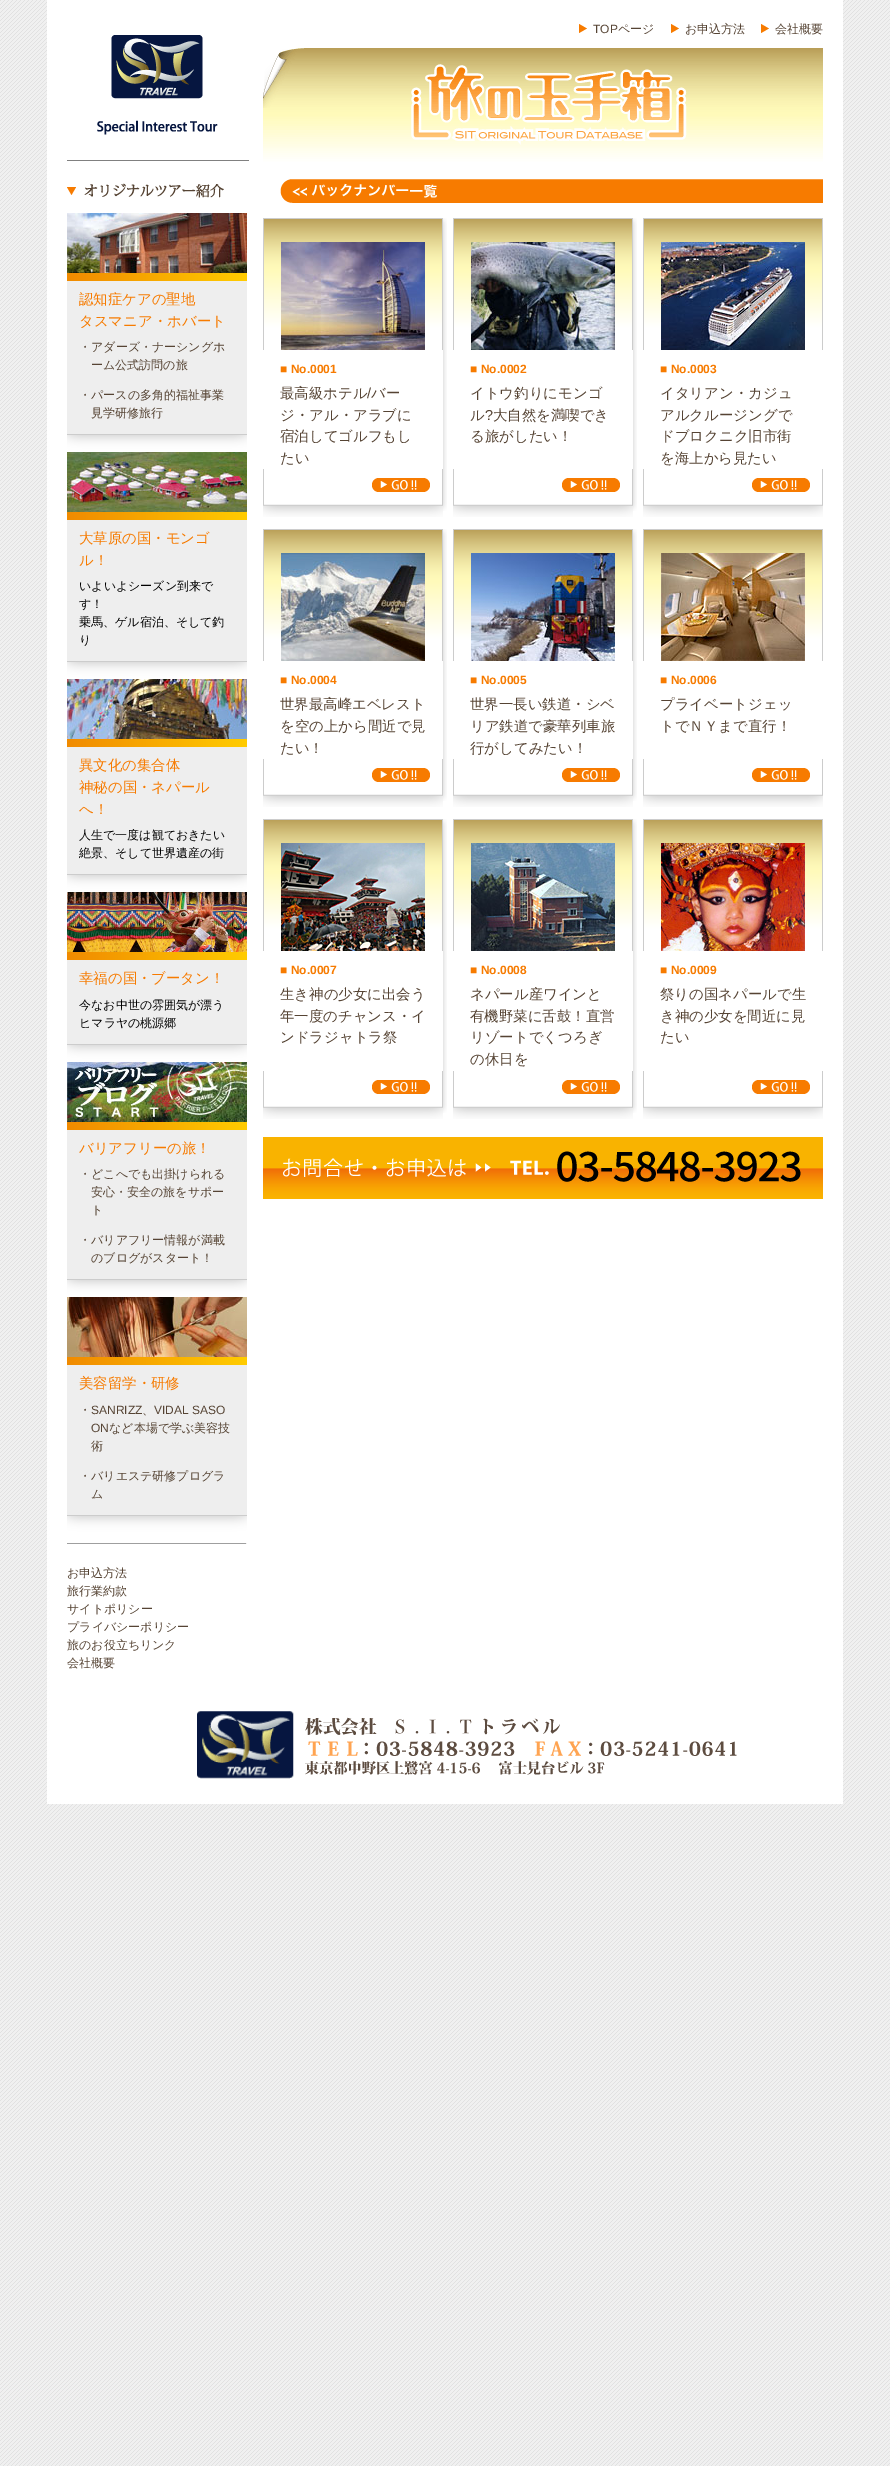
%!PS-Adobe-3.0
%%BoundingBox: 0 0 890 2466
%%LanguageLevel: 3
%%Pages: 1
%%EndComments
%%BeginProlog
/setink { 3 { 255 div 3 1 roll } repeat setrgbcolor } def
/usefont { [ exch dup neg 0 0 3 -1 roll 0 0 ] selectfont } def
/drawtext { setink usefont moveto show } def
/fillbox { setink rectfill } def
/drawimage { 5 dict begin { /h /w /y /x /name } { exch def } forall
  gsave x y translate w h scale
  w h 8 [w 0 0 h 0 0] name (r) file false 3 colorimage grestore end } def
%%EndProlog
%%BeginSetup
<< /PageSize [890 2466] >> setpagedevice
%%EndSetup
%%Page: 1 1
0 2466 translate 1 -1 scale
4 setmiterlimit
0 0 890 2466 255 255 255 fillbox
(assets/img1.rgb) 0 0 890 2466 drawimage
47 0 796 1804 255 255 255 fillbox
(assets/img2.rgb) 97 35 121 100 drawimage
67 160 182 1 128 128 128 fillbox
(assets/img3.rgb) 67 183 157 15 drawimage
67 281 180 153 238 238 238 fillbox
(assets/img4.rgb) 67 213 180 60 drawimage
(assets/img5.rgb) 67 273 180 8 drawimage
(認知症ケアの聖地) 79 304 /WenQuanYiZenHei-Medium 14.4 247 123 0 drawtext
(タスマニア・ホバート) 79 326 /WenQuanYiZenHei-Medium 14.4 247 123 0 drawtext
(・アダーズ・ナーシングホ) 79 351 /WenQuanYiZenHei-Medium 12 86 68 52 drawtext
(ーム公式訪問の旅) 91 369 /WenQuanYiZenHei-Medium 12 86 68 52 drawtext
(・パースの多角的福祉事業) 79 399 /WenQuanYiZenHei-Medium 12 86 68 52 drawtext
(見学研修旅行) 91 417 /WenQuanYiZenHei-Medium 12 86 68 52 drawtext
(assets/img6.rgb) 67 434 180 18 drawimage
67 520 180 141 238 238 238 fillbox
(assets/img7.rgb) 67 452 180 60 drawimage
(assets/img5.rgb) 67 512 180 8 drawimage
(大草原の国・モンゴ) 79 543 /WenQuanYiZenHei-Medium 14.4 247 123 0 drawtext
(ル！) 79 565 /WenQuanYiZenHei-Medium 14.4 247 123 0 drawtext
(いよいよシーズン到来で) 79 590 /WenQuanYiZenHei-Medium 12 0 0 0 drawtext
(す！) 79 608 /WenQuanYiZenHei-Medium 12 0 0 0 drawtext
(乗馬、ゲル宿泊、そして釣) 79 626 /WenQuanYiZenHei-Medium 12 0 0 0 drawtext
(り) 79 644 /WenQuanYiZenHei-Medium 12 0 0 0 drawtext
(assets/img6.rgb) 67 661 180 18 drawimage
67 747 180 127 238 238 238 fillbox
(assets/img8.rgb) 67 679 180 60 drawimage
(assets/img5.rgb) 67 739 180 8 drawimage
(異文化の集合体) 79 770 /WenQuanYiZenHei-Medium 14.4 247 123 0 drawtext
(神秘の国・ネパール) 79 792 /WenQuanYiZenHei-Medium 14.4 247 123 0 drawtext
(へ！) 79 814 /WenQuanYiZenHei-Medium 14.4 247 123 0 drawtext
(人生で一度は観ておきたい) 79 839 /WenQuanYiZenHei-Medium 12 0 0 0 drawtext
(絶景、そして世界遺産の街) 79 857 /WenQuanYiZenHei-Medium 12 0 0 0 drawtext
(assets/img6.rgb) 67 874 180 18 drawimage
67 960 180 84 238 238 238 fillbox
(assets/img9.rgb) 67 892 180 60 drawimage
(assets/img5.rgb) 67 952 180 8 drawimage
(幸福の国・ブータン！) 79 983 /WenQuanYiZenHei-Medium 14.4 247 123 0 drawtext
(今なお中世の雰囲気が漂う) 79 1009 /WenQuanYiZenHei-Medium 12 0 0 0 drawtext
(ヒマラヤの桃源郷) 79 1027 /WenQuanYiZenHei-Medium 12 0 0 0 drawtext
(assets/img6.rgb) 67 1044 180 18 drawimage
67 1130 180 149 238 238 238 fillbox
(assets/img10.rgb) 67 1062 180 60 drawimage
(assets/img5.rgb) 67 1122 180 8 drawimage
(バリアフリーの旅！) 79 1153 /WenQuanYiZenHei-Medium 14.4 247 123 0 drawtext
(・どこへでも出掛けられる) 79 1178 /WenQuanYiZenHei-Medium 12 86 68 52 drawtext
(安心・安全の旅をサポー) 91 1196 /WenQuanYiZenHei-Medium 12 86 68 52 drawtext
(ト) 91 1214 /WenQuanYiZenHei-Medium 12 86 68 52 drawtext
(・バリアフリー情報が満載) 79 1244 /WenQuanYiZenHei-Medium 12 86 68 52 drawtext
(のブログがスタート！) 91 1262 /WenQuanYiZenHei-Medium 12 86 68 52 drawtext
(assets/img6.rgb) 67 1279 180 18 drawimage
67 1365 180 150 238 238 238 fillbox
(assets/img11.rgb) 67 1297 180 60 drawimage
(assets/img5.rgb) 67 1357 180 8 drawimage
(美容留学・研修) 79 1388 /WenQuanYiZenHei-Medium 14.4 247 123 0 drawtext
(・) 79 1414 /WenQuanYiZenHei-Medium 12 86 68 52 drawtext
(SANRIZZ) 91 1414 /LiberationSans-Regular 12 86 68 52 drawtext
(VIDAL SASO) 154 1414 /LiberationSans-Regular 12 86 68 52 drawtext
(、) 142 1414 /WenQuanYiZenHei-Medium 12 86 68 52 drawtext
(ON) 91 1432 /LiberationSans-Regular 12 86 68 52 drawtext
(など本場で学ぶ美容技) 109 1432 /WenQuanYiZenHei-Medium 12 86 68 52 drawtext
(術) 91 1450 /WenQuanYiZenHei-Medium 12 86 68 52 drawtext
(・バリエステ研修プログラ) 79 1480 /WenQuanYiZenHei-Medium 12 86 68 52 drawtext
(ム) 91 1498 /WenQuanYiZenHei-Medium 12 86 68 52 drawtext
(assets/img6.rgb) 67 1515 180 18 drawimage
67 1543 180 1 159 159 159 fillbox
246 1543 1 1 238 238 238 fillbox
(お申込方法) 67 1577 /WenQuanYiZenHei-Medium 12 86 68 52 drawtext
(旅行業約款) 67 1595 /WenQuanYiZenHei-Medium 12 86 68 52 drawtext
(サイトポリシー) 67 1613 /WenQuanYiZenHei-Medium 12 86 68 52 drawtext
(プライバシーポリシー) 67 1631 /WenQuanYiZenHei-Medium 12 86 68 52 drawtext
(旅のお役立ちリンク) 67 1649 /WenQuanYiZenHei-Medium 12 86 68 52 drawtext
(会社概要) 67 1667 /WenQuanYiZenHei-Medium 12 86 68 52 drawtext
(assets/img12.rgb) 579 24 8 9 drawimage
(TOP) 593 33 /LiberationSans-Regular 12 86 68 52 drawtext
(ページ) 618 33 /WenQuanYiZenHei-Medium 12 86 68 52 drawtext
(assets/img12.rgb) 671 24 8 9 drawimage
(お申込方法) 685 33 /WenQuanYiZenHei-Medium 12 86 68 52 drawtext
(assets/img12.rgb) 761 24 8 9 drawimage
(会社概要) 775 33 /WenQuanYiZenHei-Medium 12 86 68 52 drawtext
(assets/img13.rgb) 263 48 560 155 drawimage
(assets/img14.rgb) 263 218 180 132 drawimage
(assets/img15.rgb) 281 242 144 108 drawimage
(assets/img16.rgb) 443 218 4 251 drawimage
(assets/img14.rgb) 453 218 180 132 drawimage
(assets/img17.rgb) 471 242 144 108 drawimage
(assets/img16.rgb) 633 218 4 251 drawimage
(assets/img14.rgb) 643 218 180 132 drawimage
(assets/img18.rgb) 661 242 144 108 drawimage
(■ No.0001) 280 373 /LiberationSans-Bold 12 247 123 0 drawtext
(最高級ホテル) 280 398 /WenQuanYiZenHei-Medium 14.4 86 68 52 drawtext
(/) 367 398 /LiberationSans-Regular 14.4 86 68 52 drawtext
(バー) 371 398 /WenQuanYiZenHei-Medium 14.4 86 68 52 drawtext
(ジ・アル・アラブに) 280 420 /WenQuanYiZenHei-Medium 14.4 86 68 52 drawtext
(宿泊してゴルフもし) 280 441 /WenQuanYiZenHei-Medium 14.4 86 68 52 drawtext
(たい) 280 463 /WenQuanYiZenHei-Medium 14.4 86 68 52 drawtext
(■ No.0002) 470 373 /LiberationSans-Bold 12 247 123 0 drawtext
(イトウ釣りにモンゴ) 470 398 /WenQuanYiZenHei-Medium 14.4 86 68 52 drawtext
(ル) 470 420 /WenQuanYiZenHei-Medium 14.4 86 68 52 drawtext
(?) 485 420 /LiberationSans-Regular 14.4 86 68 52 drawtext
(大自然を満喫でき) 493 420 /WenQuanYiZenHei-Medium 14.4 86 68 52 drawtext
(る旅がしたい！) 470 441 /WenQuanYiZenHei-Medium 14.4 86 68 52 drawtext
(■ No.0003) 660 373 /LiberationSans-Bold 12 247 123 0 drawtext
(イタリアン・カジュ) 660 398 /WenQuanYiZenHei-Medium 14.4 86 68 52 drawtext
(アルクルージングで) 660 420 /WenQuanYiZenHei-Medium 14.4 86 68 52 drawtext
(ドブロクニク旧市街) 660 441 /WenQuanYiZenHei-Medium 14.4 86 68 52 drawtext
(を海上から見たい) 660 463 /WenQuanYiZenHei-Medium 14.4 86 68 52 drawtext
(assets/img19.rgb) 263 469 180 48 drawimage
(assets/img20.rgb) 443 469 4 42 drawimage
(assets/img19.rgb) 453 469 180 48 drawimage
(assets/img20.rgb) 633 469 4 42 drawimage
(assets/img19.rgb) 643 469 180 48 drawimage
(assets/img14.rgb) 263 529 180 132 drawimage
(assets/img21.rgb) 281 553 144 108 drawimage
(assets/img22.rgb) 443 529 4 230 drawimage
(assets/img14.rgb) 453 529 180 132 drawimage
(assets/img23.rgb) 471 553 144 108 drawimage
(assets/img22.rgb) 633 529 4 230 drawimage
(assets/img14.rgb) 643 529 180 132 drawimage
(assets/img24.rgb) 661 553 144 108 drawimage
(■ No.0004) 280 684 /LiberationSans-Bold 12 247 123 0 drawtext
(世界最高峰エベレスト) 280 709 /WenQuanYiZenHei-Medium 14.4 86 68 52 drawtext
(を空の上から間近で見) 280 731 /WenQuanYiZenHei-Medium 14.4 86 68 52 drawtext
(たい！) 280 753 /WenQuanYiZenHei-Medium 14.4 86 68 52 drawtext
(■ No.0005) 470 684 /LiberationSans-Bold 12 247 123 0 drawtext
(世界一長い鉄道・シベ) 470 709 /WenQuanYiZenHei-Medium 14.4 86 68 52 drawtext
(リア鉄道で豪華列車旅) 470 731 /WenQuanYiZenHei-Medium 14.4 86 68 52 drawtext
(行がしてみたい！) 470 753 /WenQuanYiZenHei-Medium 14.4 86 68 52 drawtext
(■ No.0006) 660 684 /LiberationSans-Bold 12 247 123 0 drawtext
(プライベートジェッ) 660 709 /WenQuanYiZenHei-Medium 14.4 86 68 52 drawtext
(トでＮＹまで直行！) 660 731 /WenQuanYiZenHei-Medium 14.4 86 68 52 drawtext
(assets/img19.rgb) 263 759 180 48 drawimage
(assets/img20.rgb) 443 759 4 42 drawimage
(assets/img19.rgb) 453 759 180 48 drawimage
(assets/img20.rgb) 633 759 4 42 drawimage
(assets/img19.rgb) 643 759 180 48 drawimage
(assets/img14.rgb) 263 819 180 132 drawimage
(assets/img25.rgb) 281 843 144 108 drawimage
(assets/img26.rgb) 443 819 4 252 drawimage
(assets/img14.rgb) 453 819 180 132 drawimage
(assets/img27.rgb) 471 843 144 108 drawimage
(assets/img26.rgb) 633 819 4 252 drawimage
(assets/img14.rgb) 643 819 180 132 drawimage
(assets/img28.rgb) 661 843 144 108 drawimage
(■ No.0007) 280 974 /LiberationSans-Bold 12 247 123 0 drawtext
(生き神の少女に出会う) 280 999 /WenQuanYiZenHei-Medium 14.4 86 68 52 drawtext
(年一度のチャンス・イ) 280 1021 /WenQuanYiZenHei-Medium 14.4 86 68 52 drawtext
(ンドラジャトラ祭) 280 1042 /WenQuanYiZenHei-Medium 14.4 86 68 52 drawtext
(■ No.0008) 470 974 /LiberationSans-Bold 12 247 123 0 drawtext
(ネパール産ワインと) 470 999 /WenQuanYiZenHei-Medium 14.4 86 68 52 drawtext
(有機野菜に舌鼓！直営) 470 1021 /WenQuanYiZenHei-Medium 14.4 86 68 52 drawtext
(リゾートでくつろぎ) 470 1042 /WenQuanYiZenHei-Medium 14.4 86 68 52 drawtext
(の休日を) 470 1064 /WenQuanYiZenHei-Medium 14.4 86 68 52 drawtext
(■ No.0009) 660 974 /LiberationSans-Bold 12 247 123 0 drawtext
(祭りの国ネパールで生) 660 999 /WenQuanYiZenHei-Medium 14.4 86 68 52 drawtext
(き神の少女を間近に見) 660 1021 /WenQuanYiZenHei-Medium 14.4 86 68 52 drawtext
(たい) 660 1042 /WenQuanYiZenHei-Medium 14.4 86 68 52 drawtext
(assets/img19.rgb) 263 1071 180 48 drawimage
(assets/img20.rgb) 443 1071 4 42 drawimage
(assets/img19.rgb) 453 1071 180 48 drawimage
(assets/img20.rgb) 633 1071 4 42 drawimage
(assets/img19.rgb) 643 1071 180 48 drawimage
(assets/img29.rgb) 263 1137 560 62 drawimage
(assets/img30.rgb) 197 1711 540 68 drawimage
showpage
%%EOF
